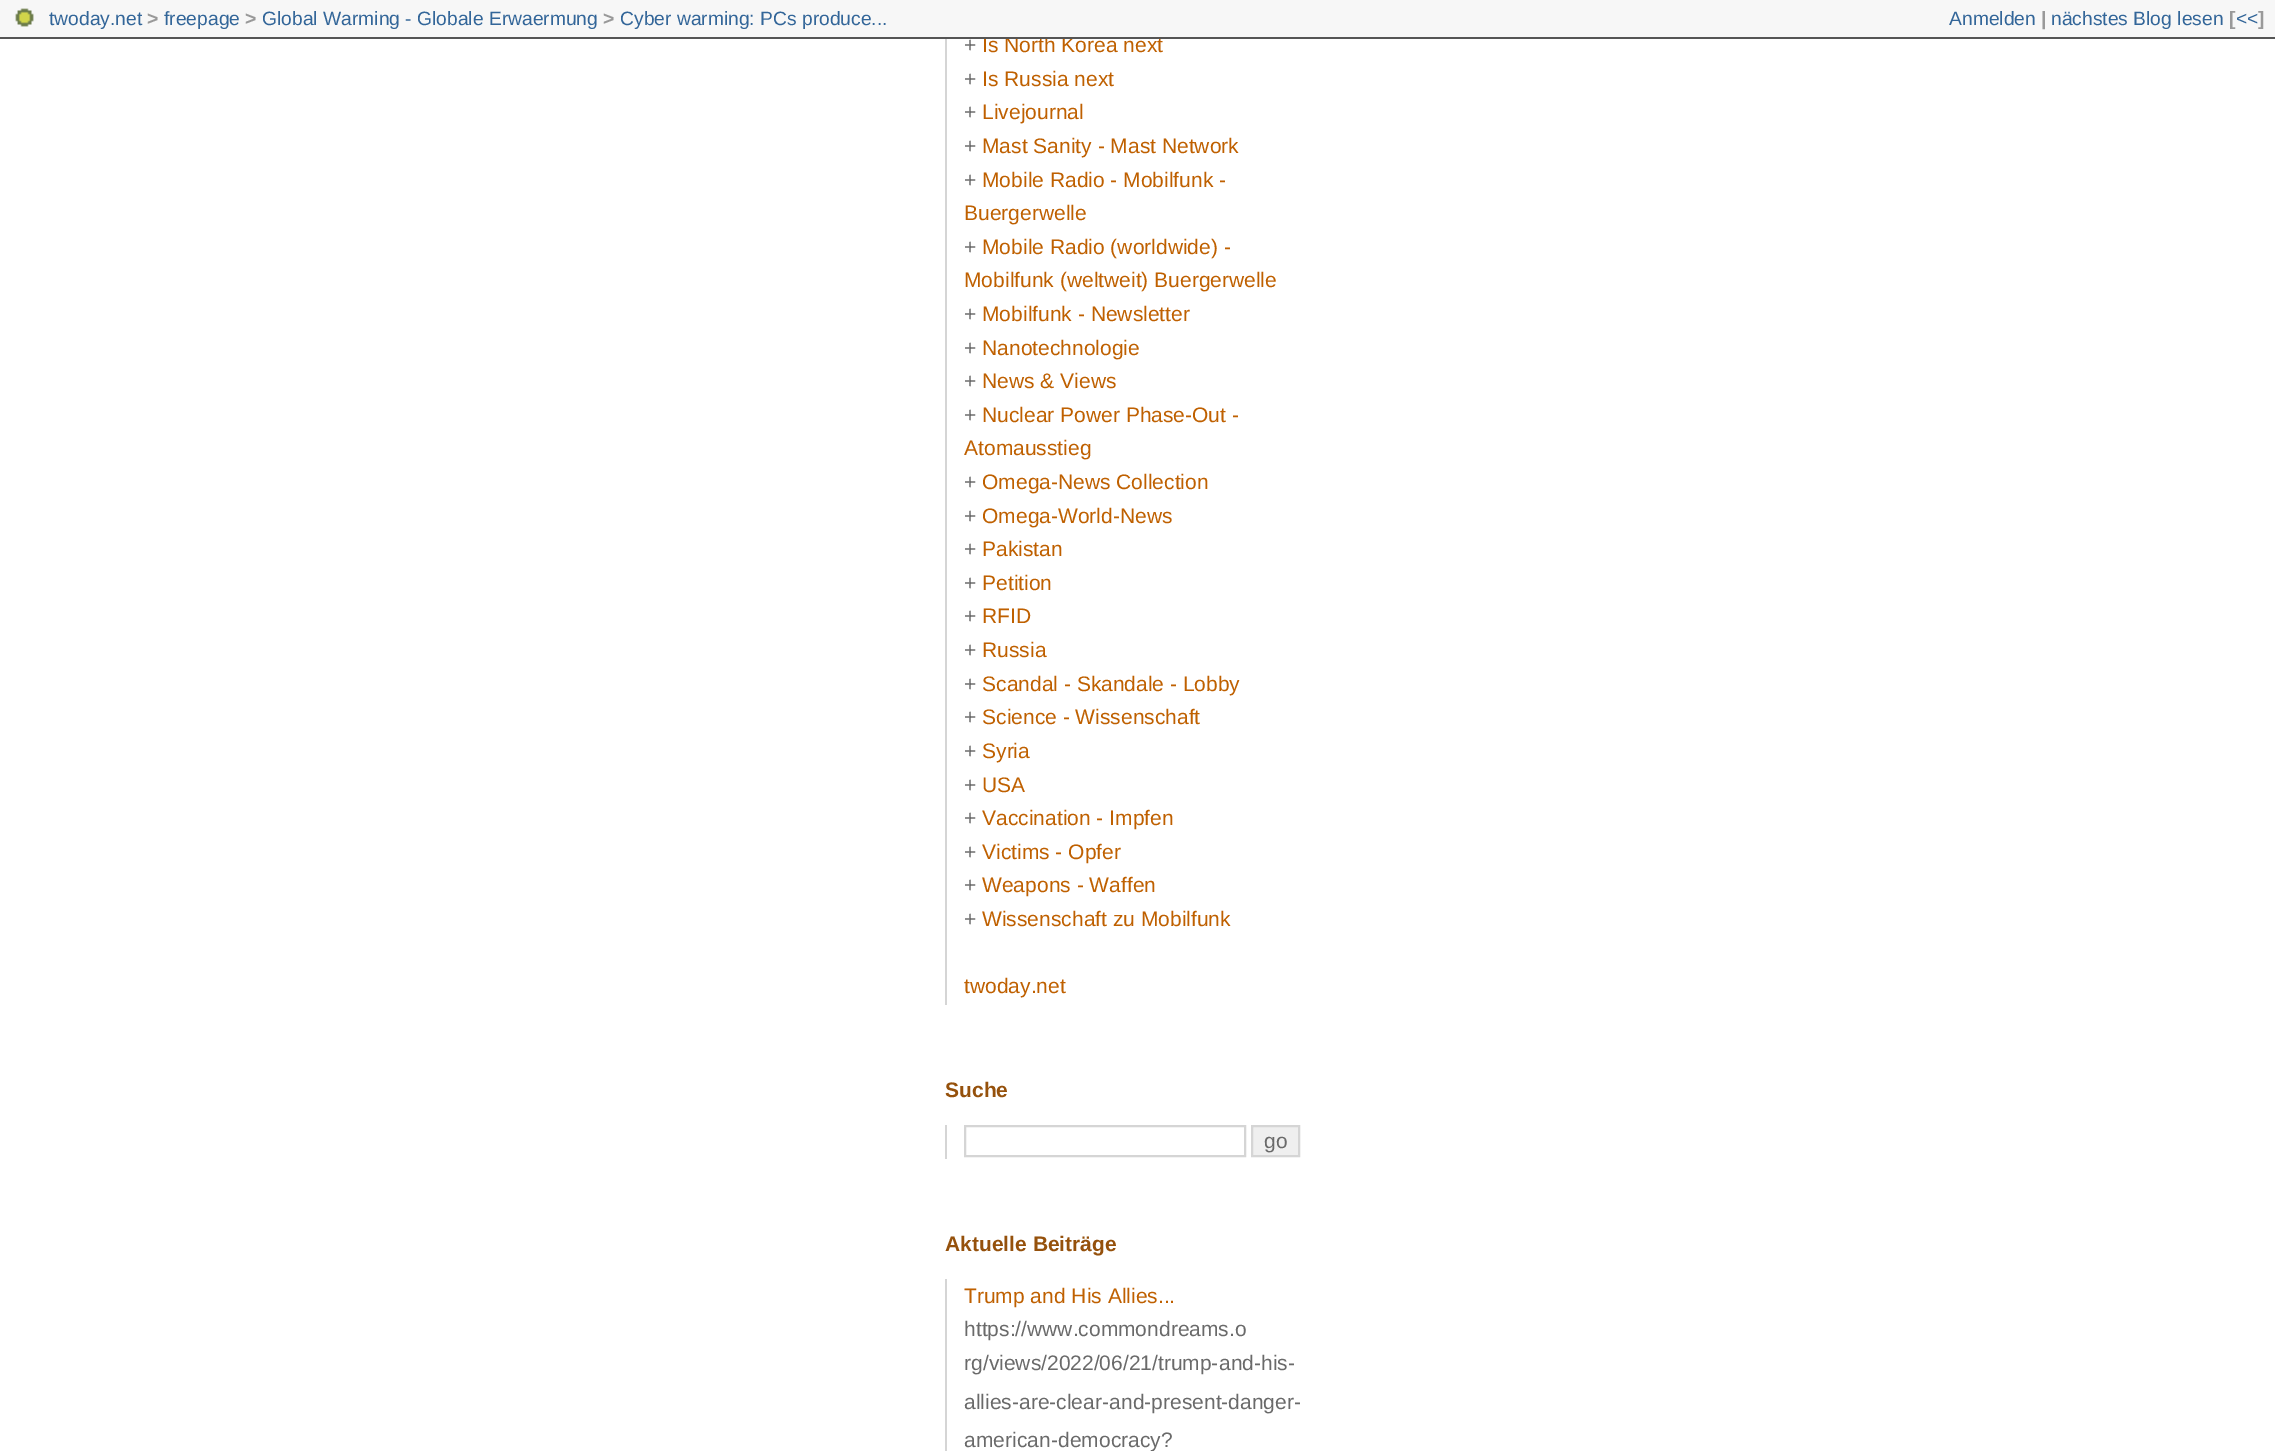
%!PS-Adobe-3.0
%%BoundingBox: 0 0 2275 1451
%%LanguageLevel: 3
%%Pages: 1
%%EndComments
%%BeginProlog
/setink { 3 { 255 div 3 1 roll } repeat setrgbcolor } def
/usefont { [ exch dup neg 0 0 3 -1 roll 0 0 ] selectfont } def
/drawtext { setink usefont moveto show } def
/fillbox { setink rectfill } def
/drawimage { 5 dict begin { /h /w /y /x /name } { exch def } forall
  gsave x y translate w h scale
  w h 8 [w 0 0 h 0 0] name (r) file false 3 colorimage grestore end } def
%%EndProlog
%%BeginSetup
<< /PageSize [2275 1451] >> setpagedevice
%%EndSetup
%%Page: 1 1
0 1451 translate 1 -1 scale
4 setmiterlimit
0 0 2275 1451 255 255 255 fillbox
(Is North Korea next) 982 52 /LiberationSans-Regular 21 191 96 0 drawtext
0 0 2275 37 247 247 247 fillbox
0 37 2275 2 85 85 85 fillbox
(assets/img1.rgb) 15 8 19 19 drawimage
(twoday.net) 49 25 /LiberationSans-Regular 19.25 51 102 153 drawtext
(>) 147 25 /LiberationSans-Bold 19.25 153 153 153 drawtext
(freepage) 164 25 /LiberationSans-Regular 19.25 51 102 153 drawtext
(>) 245 25 /LiberationSans-Bold 19.25 153 153 153 drawtext
(Global Warming - Globale Erwaermung) 262 25 /LiberationSans-Regular 19.25 51 102 153 drawtext
(>) 603 25 /LiberationSans-Bold 19.25 153 153 153 drawtext
(Cyber warming: PCs produce...) 620 25 /LiberationSans-Regular 19.25 51 102 153 drawtext
(Anmelden) 1949 25 /LiberationSans-Regular 19.25 51 102 153 drawtext
(|) 2041 25 /LiberationSans-Bold 19.25 153 153 153 drawtext
(nächstes Blog lesen) 2051 25 /LiberationSans-Regular 19.25 51 102 153 drawtext
([) 2229 25 /LiberationSans-Bold 19.25 153 153 153 drawtext
(<<) 2236 25 /LiberationSans-Regular 19.25 51 102 153 drawtext
(]) 2258 25 /LiberationSans-Bold 19.25 153 153 153 drawtext
945 39 2 966 213 213 213 fillbox
(+) 964 52 /LiberationSans-Regular 21 106 106 106 drawtext
(+) 964 86 /LiberationSans-Regular 21 106 106 106 drawtext
(Is Russia next) 982 86 /LiberationSans-Regular 21 191 96 0 drawtext
(+) 964 119 /LiberationSans-Regular 21 106 106 106 drawtext
(Livejournal) 982 119 /LiberationSans-Regular 21 191 96 0 drawtext
(+) 964 153 /LiberationSans-Regular 21 106 106 106 drawtext
(Mast Sanity - Mast Network) 982 153 /LiberationSans-Regular 21 191 96 0 drawtext
(+) 964 187 /LiberationSans-Regular 21 106 106 106 drawtext
(Mobile Radio - Mobilfunk -) 982 187 /LiberationSans-Regular 21 191 96 0 drawtext
(Buergerwelle) 964 220 /LiberationSans-Regular 21 191 96 0 drawtext
(+) 964 254 /LiberationSans-Regular 21 106 106 106 drawtext
(Mobile Radio \(worldwide\) -) 982 254 /LiberationSans-Regular 21 191 96 0 drawtext
(Mobilfunk \(weltweit\) Buergerwelle) 964 287 /LiberationSans-Regular 21 191 96 0 drawtext
(+) 964 321 /LiberationSans-Regular 21 106 106 106 drawtext
(Mobilfunk - Newsletter) 982 321 /LiberationSans-Regular 21 191 96 0 drawtext
(+) 964 355 /LiberationSans-Regular 21 106 106 106 drawtext
(Nanotechnologie) 982 355 /LiberationSans-Regular 21 191 96 0 drawtext
(+) 964 388 /LiberationSans-Regular 21 106 106 106 drawtext
(News & Views) 982 388 /LiberationSans-Regular 21 191 96 0 drawtext
(+) 964 422 /LiberationSans-Regular 21 106 106 106 drawtext
(Nuclear Power Phase-Out -) 982 422 /LiberationSans-Regular 21 191 96 0 drawtext
(Atomausstieg) 964 455 /LiberationSans-Regular 21 191 96 0 drawtext
(+) 964 489 /LiberationSans-Regular 21 106 106 106 drawtext
(Omega-News Collection) 982 489 /LiberationSans-Regular 21 191 96 0 drawtext
(+) 964 523 /LiberationSans-Regular 21 106 106 106 drawtext
(Omega-World-News) 982 523 /LiberationSans-Regular 21 191 96 0 drawtext
(+) 964 556 /LiberationSans-Regular 21 106 106 106 drawtext
(Pakistan) 982 556 /LiberationSans-Regular 21 191 96 0 drawtext
(+) 964 590 /LiberationSans-Regular 21 106 106 106 drawtext
(Petition) 982 590 /LiberationSans-Regular 21 191 96 0 drawtext
(+) 964 623 /LiberationSans-Regular 21 106 106 106 drawtext
(RFID) 982 623 /LiberationSans-Regular 21 191 96 0 drawtext
(+) 964 657 /LiberationSans-Regular 21 106 106 106 drawtext
(Russia) 982 657 /LiberationSans-Regular 21 191 96 0 drawtext
(+) 964 691 /LiberationSans-Regular 21 106 106 106 drawtext
(Scandal - Skandale - Lobby) 982 691 /LiberationSans-Regular 21 191 96 0 drawtext
(+) 964 724 /LiberationSans-Regular 21 106 106 106 drawtext
(Science - Wissenschaft) 982 724 /LiberationSans-Regular 21 191 96 0 drawtext
(+) 964 758 /LiberationSans-Regular 21 106 106 106 drawtext
(Syria) 982 758 /LiberationSans-Regular 21 191 96 0 drawtext
(+) 964 792 /LiberationSans-Regular 21 106 106 106 drawtext
(USA) 982 792 /LiberationSans-Regular 21 191 96 0 drawtext
(+) 964 825 /LiberationSans-Regular 21 106 106 106 drawtext
(Vaccination - Impfen) 982 825 /LiberationSans-Regular 21 191 96 0 drawtext
(+) 964 859 /LiberationSans-Regular 21 106 106 106 drawtext
(Victims - Opfer) 982 859 /LiberationSans-Regular 21 191 96 0 drawtext
(+) 964 892 /LiberationSans-Regular 21 106 106 106 drawtext
(Weapons - Waffen) 982 892 /LiberationSans-Regular 21 191 96 0 drawtext
(+) 964 926 /LiberationSans-Regular 21 106 106 106 drawtext
(Wissenschaft zu Mobilfunk) 982 926 /LiberationSans-Regular 21 191 96 0 drawtext
(twoday.net) 964 993 /LiberationSans-Regular 21 191 96 0 drawtext
(Suche) 945 1097 /LiberationSans-Bold 21 149 81 12 drawtext
945 1125 2 34 213 213 213 fillbox
2 setlinewidth
965 1126 280 30 rectstroke
239 239 239 setink
1252 1126 moveto 1299 1126 lineto 1299 1156 lineto 1252 1156 lineto closepath gsave fill grestore
213 213 213 setink
stroke
(go) 1264 1148 /LiberationSans-Regular 21 106 106 106 drawtext
(Aktuelle Beiträge) 945 1251 /LiberationSans-Bold 21 149 81 12 drawtext
945 1279 2 172 213 213 213 fillbox
(Trump and His Allies...) 964 1303 /LiberationSans-Regular 21 191 96 0 drawtext
(https://www.commondreams.o) 964 1336 /LiberationSans-Regular 21 106 106 106 drawtext
(rg/views/2022/06/21/trump-) 964 1370 /LiberationSans-Regular 21 106 106 106 drawtext
(and-his-) 1219 1370 /LiberationSans-Regular 21 106 106 106 drawtext
(allies-are-clear-a) 964 1409 /LiberationSans-Regular 21 106 106 106 drawtext
(nd-present-danger-) 1121 1409 /LiberationSans-Regular 21 106 106 106 drawtext
(american) 964 1447 /LiberationSans-Regular 21 106 106 106 drawtext
(-democracy?) 1051 1447 /LiberationSans-Regular 21 106 106 106 drawtext
showpage
%%EOF
